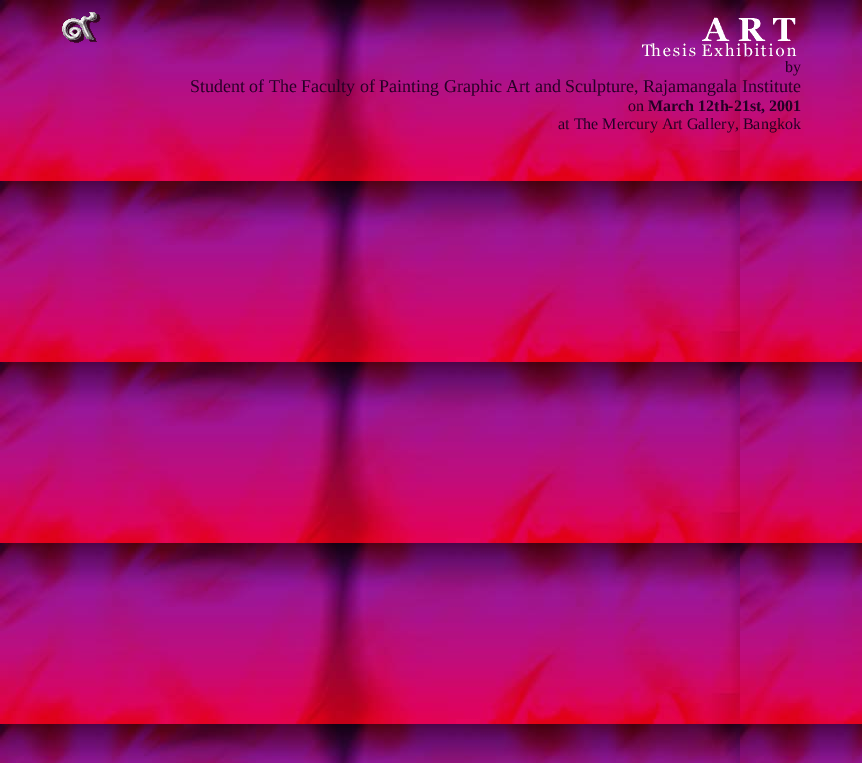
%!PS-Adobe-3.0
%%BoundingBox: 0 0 862 763
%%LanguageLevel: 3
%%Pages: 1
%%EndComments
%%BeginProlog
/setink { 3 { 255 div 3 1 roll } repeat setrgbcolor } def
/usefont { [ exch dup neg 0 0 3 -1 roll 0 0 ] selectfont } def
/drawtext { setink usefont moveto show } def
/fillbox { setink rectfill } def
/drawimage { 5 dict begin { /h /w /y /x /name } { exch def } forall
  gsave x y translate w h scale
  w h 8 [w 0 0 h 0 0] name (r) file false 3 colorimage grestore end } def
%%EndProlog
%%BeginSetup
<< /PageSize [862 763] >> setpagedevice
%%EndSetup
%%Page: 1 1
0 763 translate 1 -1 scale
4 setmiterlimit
0 0 862 763 255 255 255 fillbox
(assets/img1.rgb) 0 0 862 763 drawimage
(assets/img2.rgb) 62 12 39 31 drawimage
(assets/img3.rgb) 642 17 155 40 drawimage
(by) 785 72 /LiberationSerif-Regular 16 38 0 38 drawtext
(Student of The Faculty of Painting Graphic Art and Sculpture, Rajamangala Institute) 190 92 /LiberationSerif-Regular 18 38 0 38 drawtext
(on) 628 111 /LiberationSerif-Regular 16 38 0 38 drawtext
(March 12th-21st, 2001) 648 111 /LiberationSerif-Bold 16 38 0 38 drawtext
(at The Mercury Art Gallery, Bangkok) 558 129 /LiberationSerif-Regular 16 38 0 38 drawtext
showpage
%%EOF
